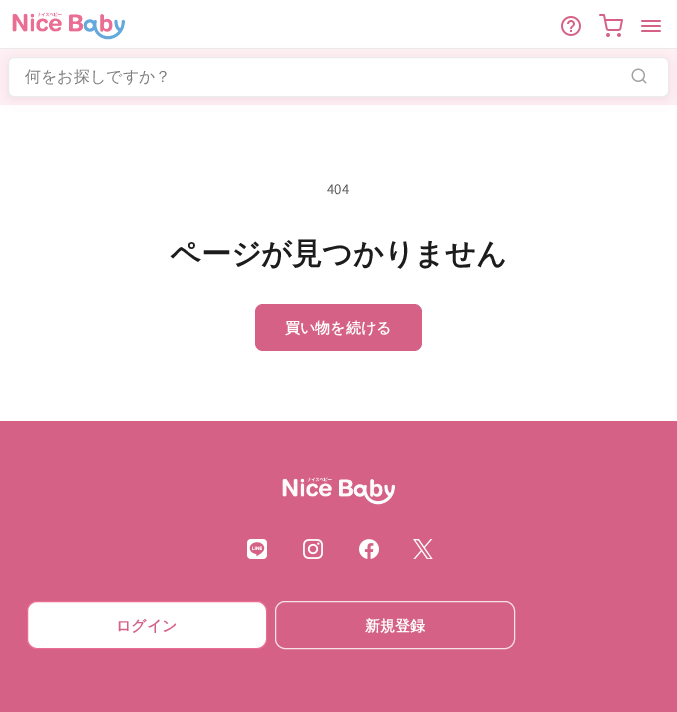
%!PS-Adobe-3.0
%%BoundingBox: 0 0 677 712
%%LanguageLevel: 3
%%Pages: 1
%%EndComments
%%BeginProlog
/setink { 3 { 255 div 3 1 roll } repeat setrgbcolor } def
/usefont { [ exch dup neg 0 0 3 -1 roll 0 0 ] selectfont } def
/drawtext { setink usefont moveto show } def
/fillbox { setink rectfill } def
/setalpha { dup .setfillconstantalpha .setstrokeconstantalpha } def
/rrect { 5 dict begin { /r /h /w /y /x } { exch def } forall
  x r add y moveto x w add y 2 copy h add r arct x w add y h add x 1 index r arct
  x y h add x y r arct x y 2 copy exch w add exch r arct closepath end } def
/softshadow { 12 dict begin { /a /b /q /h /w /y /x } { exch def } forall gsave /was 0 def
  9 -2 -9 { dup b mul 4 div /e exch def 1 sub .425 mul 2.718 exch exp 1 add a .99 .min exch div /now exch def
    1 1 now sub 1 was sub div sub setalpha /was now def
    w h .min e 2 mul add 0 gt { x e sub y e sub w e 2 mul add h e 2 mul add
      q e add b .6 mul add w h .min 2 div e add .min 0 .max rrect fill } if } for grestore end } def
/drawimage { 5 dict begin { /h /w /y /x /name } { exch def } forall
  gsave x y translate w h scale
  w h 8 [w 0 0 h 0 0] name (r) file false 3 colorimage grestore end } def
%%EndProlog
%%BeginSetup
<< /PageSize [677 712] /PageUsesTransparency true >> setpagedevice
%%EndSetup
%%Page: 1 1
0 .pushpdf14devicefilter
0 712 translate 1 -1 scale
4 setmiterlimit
0 0 677 712 255 255 255 fillbox
0 48 677 1 235 235 235 fillbox
(assets/img1.rgb) 12 12 113 28 drawimage
(assets/img2.rgb) 561 16 20 20 drawimage
(assets/img3.rgb) 599 14 24 23 drawimage
(assets/img4.rgb) 641 20 20 12 drawimage
0 49 677 56 253 240 244 fillbox
129 43 81 setink
8 59 661 40 6 6 0.1 softshadow
255 255 255 setink
8.5 57.5 660 39 5.5 rrect gsave fill grestore
235 235 235 setink
stroke
(何をお探しですか？) 25 82 /WenQuanYiZenHei-Medium 16 125 125 125 drawtext
(assets/img5.rgb) 631 68 16 16 drawimage
(404) 327 194 /Assistant-Regular 15 77 77 77 drawtext
(ページが見つかりません) 170 264 /WenQuanYiZenHei-Bold 30 28 28 28 drawtext
213 98 134 setink
255 304 167 47 8 rrect fill
(買い物を続ける) 285 333 /WenQuanYiZenHei-Bold 15 255 255 255 drawtext
0 421 677 291 213 98 134 fillbox
(assets/img6.rgb) 282 477 113 28 drawimage
(assets/img7.rgb) 247 539 20 20 drawimage
(assets/img8.rgb) 303 539 20 20 drawimage
(assets/img9.rgb) 359 539 20 20 drawimage
(assets/img10.rgb) 413 539 20 20 drawimage
255 255 255 setink
27.5 601.5 239 47 9.5 rrect gsave fill grestore
234 108 147 setink
stroke
(ログイン) 116 631 /WenQuanYiZenHei-Bold 15 213 98 134 drawtext
247 224 231 setink
275.5 601.5 239 47 9.5 rrect stroke
(新規登録) 365 631 /WenQuanYiZenHei-Bold 15 255 255 255 drawtext
.poppdf14devicefilter showpage
%%EOF
